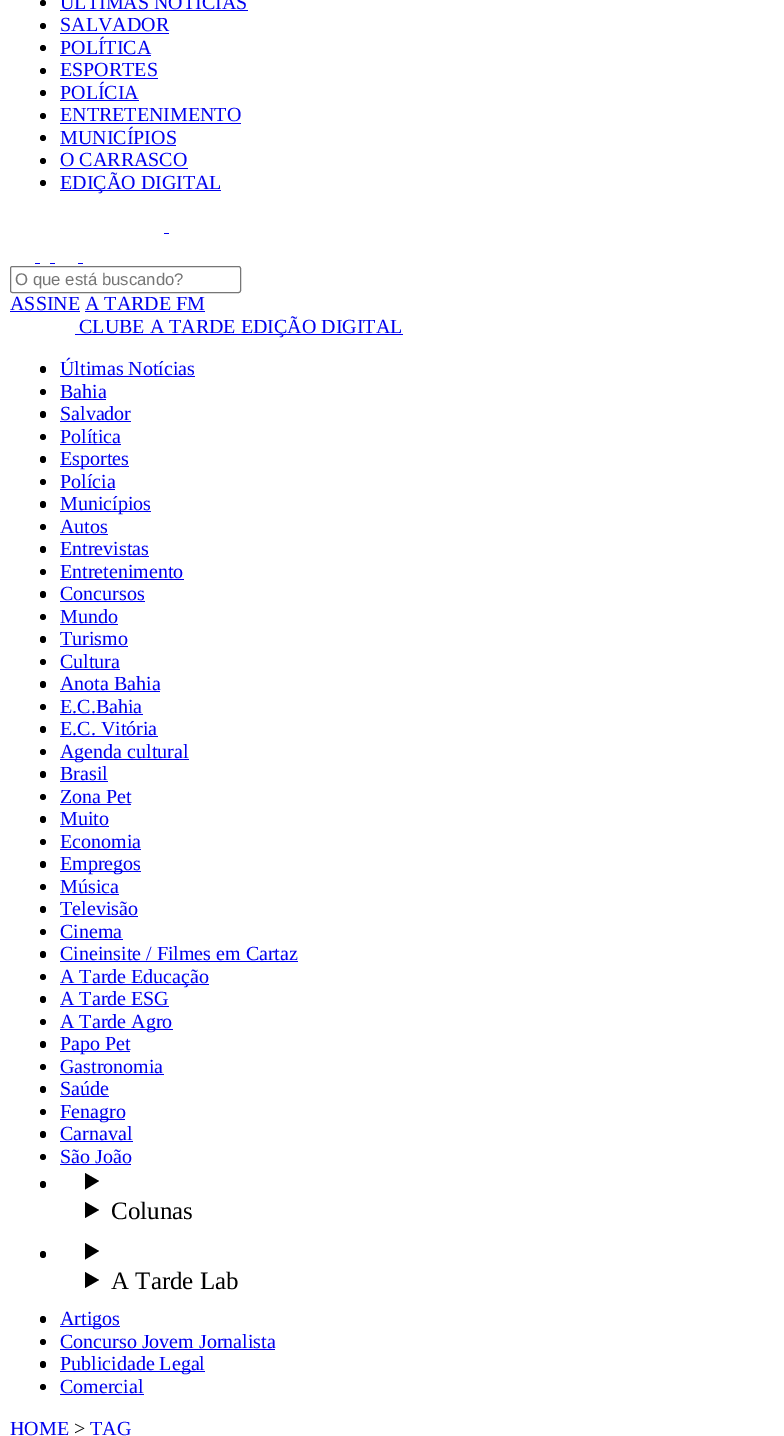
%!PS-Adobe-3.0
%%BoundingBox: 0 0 784 1436
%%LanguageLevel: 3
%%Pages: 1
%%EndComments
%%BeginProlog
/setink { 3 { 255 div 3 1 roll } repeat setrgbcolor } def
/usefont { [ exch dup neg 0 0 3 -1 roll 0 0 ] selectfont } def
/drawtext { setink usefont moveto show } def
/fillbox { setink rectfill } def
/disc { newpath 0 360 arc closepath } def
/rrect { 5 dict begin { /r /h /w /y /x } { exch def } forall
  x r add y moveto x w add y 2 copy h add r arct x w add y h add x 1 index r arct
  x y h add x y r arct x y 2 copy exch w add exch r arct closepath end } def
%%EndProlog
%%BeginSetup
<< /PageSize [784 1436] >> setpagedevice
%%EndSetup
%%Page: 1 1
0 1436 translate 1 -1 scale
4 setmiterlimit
0 0 784 1436 255 255 255 fillbox
0 0 0 setink
43 3 3 disc fill
(ÚLTIMAS NOTÍCIAS) 60 9 /LiberationSerif-Regular 20 0 0 238 drawtext
60 10 188 1 0 0 238 fillbox
0 0 0 setink
43 26 3 disc fill
(SALVADOR) 60 31 /LiberationSerif-Regular 20 0 0 238 drawtext
60 33 109 1 0 0 238 fillbox
0 0 0 setink
43 48 3 disc fill
(POLÍTICA) 60 54 /LiberationSerif-Regular 20 0 0 238 drawtext
60 55 91 1 0 0 238 fillbox
0 0 0 setink
43 71 3 disc fill
(ESPORTES) 60 76 /LiberationSerif-Regular 20 0 0 238 drawtext
60 78 98 1 0 0 238 fillbox
0 0 0 setink
43 93 3 disc fill
(POLÍCIA) 60 99 /LiberationSerif-Regular 20 0 0 238 drawtext
60 100 79 1 0 0 238 fillbox
0 0 0 setink
43 116 3 disc fill
(ENTRETENIMENTO) 60 121 /LiberationSerif-Regular 20 0 0 238 drawtext
60 123 181 1 0 0 238 fillbox
0 0 0 setink
43 138 3 disc fill
(MUNICÍPIOS) 60 144 /LiberationSerif-Regular 20 0 0 238 drawtext
60 145 116 1 0 0 238 fillbox
0 0 0 setink
43 161 3 disc fill
(O CARRASCO) 60 166 /LiberationSerif-Regular 20 0 0 238 drawtext
60 168 128 1 0 0 238 fillbox
0 0 0 setink
43 183 3 disc fill
60 190 161 1 0 0 238 fillbox
(EDIÇÃO DIGITAL) 60 189 /LiberationSerif-Regular 20 0 0 238 drawtext
164 233 5 1 0 0 238 fillbox
35 263 5 1 0 0 238 fillbox
50 263 5 1 0 0 238 fillbox
78 263 5 1 0 0 238 fillbox
118 118 118 setink
10.5 266.5 230 26 2 rrect stroke
(O que está buscando?) 15 285 /LiberationSans-Regular 16.75 117 117 117 drawtext
(ASSINE A TARDE FM) 10 310 /LiberationSerif-Regular 20 0 0 238 drawtext
10 311 70 1 0 0 238 fillbox
85 311 120 1 0 0 238 fillbox
75 334 328 1 0 0 238 fillbox
(CLUBE A TARDE EDIÇÃO DIGITAL) 79 333 /LiberationSerif-Regular 20 0 0 238 drawtext
0 0 0 setink
40 366 6 7 3 rrect fill
(Últimas Notícias) 60 375 /LiberationSerif-Regular 20 0 0 238 drawtext
60 376 135 1 0 0 238 fillbox
0 0 0 setink
43 392 3 disc fill
(Bahia) 60 398 /LiberationSerif-Regular 20 0 0 238 drawtext
60 399 46 1 0 0 238 fillbox
0 0 0 setink
40 411 6 7 3 rrect fill
(Salvador) 60 420 /LiberationSerif-Regular 20 0 0 238 drawtext
60 421 71 1 0 0 238 fillbox
0 0 0 setink
43 437 3 disc fill
(Política) 60 443 /LiberationSerif-Regular 20 0 0 238 drawtext
60 444 61 1 0 0 238 fillbox
0 0 0 setink
40 456 6 7 3 rrect fill
60 466 69 1 0 0 238 fillbox
(Esportes) 60 465 /LiberationSerif-Regular 20 0 0 238 drawtext
0 0 0 setink
43 482 3 disc fill
(Polícia) 60 488 /LiberationSerif-Regular 20 0 0 238 drawtext
60 489 55 1 0 0 238 fillbox
0 0 0 setink
40 501 6 7 3 rrect fill
60 511 91 1 0 0 238 fillbox
(Municípios) 60 510 /LiberationSerif-Regular 20 0 0 238 drawtext
0 0 0 setink
43 527 3 disc fill
(Autos) 60 533 /LiberationSerif-Regular 20 0 0 238 drawtext
60 534 48 1 0 0 238 fillbox
0 0 0 setink
40 546 6 7 3 rrect fill
(Entrevistas) 60 555 /LiberationSerif-Regular 20 0 0 238 drawtext
60 556 89 1 0 0 238 fillbox
0 0 0 setink
43 572 3 disc fill
(Entretenimento) 60 578 /LiberationSerif-Regular 20 0 0 238 drawtext
60 579 124 1 0 0 238 fillbox
0 0 0 setink
40 591 6 7 3 rrect fill
(Concursos) 60 600 /LiberationSerif-Regular 20 0 0 238 drawtext
60 601 85 1 0 0 238 fillbox
0 0 0 setink
43 617 3 disc fill
(Mundo) 60 623 /LiberationSerif-Regular 20 0 0 238 drawtext
60 624 58 1 0 0 238 fillbox
0 0 0 setink
40 636 6 7 3 rrect fill
(Turismo) 60 645 /LiberationSerif-Regular 20 0 0 238 drawtext
60 646 68 1 0 0 238 fillbox
0 0 0 setink
43 662 3 disc fill
(Cultura) 60 668 /LiberationSerif-Regular 20 0 0 238 drawtext
60 669 60 1 0 0 238 fillbox
0 0 0 setink
40 681 6 7 3 rrect fill
(Anota Bahia) 60 690 /LiberationSerif-Regular 20 0 0 238 drawtext
60 691 100 1 0 0 238 fillbox
0 0 0 setink
43 707 3 disc fill
(E.C.Bahia) 60 713 /LiberationSerif-Regular 20 0 0 238 drawtext
60 714 83 1 0 0 238 fillbox
0 0 0 setink
40 726 6 7 3 rrect fill
(E.C. Vitória) 60 735 /LiberationSerif-Regular 20 0 0 238 drawtext
60 736 98 1 0 0 238 fillbox
0 0 0 setink
43 752 3 disc fill
60 759 129 1 0 0 238 fillbox
(Agenda cultural) 60 758 /LiberationSerif-Regular 20 0 0 238 drawtext
0 0 0 setink
40 771 6 7 3 rrect fill
(Brasil) 60 780 /LiberationSerif-Regular 20 0 0 238 drawtext
60 781 48 1 0 0 238 fillbox
0 0 0 setink
43 797 3 disc fill
(Zona Pet) 60 803 /LiberationSerif-Regular 20 0 0 238 drawtext
60 804 71 1 0 0 238 fillbox
0 0 0 setink
40 816 6 7 3 rrect fill
(Muito) 60 825 /LiberationSerif-Regular 20 0 0 238 drawtext
60 826 49 1 0 0 238 fillbox
0 0 0 setink
43 842 3 disc fill
(Economia) 60 848 /LiberationSerif-Regular 20 0 0 238 drawtext
60 849 81 1 0 0 238 fillbox
0 0 0 setink
40 861 6 7 3 rrect fill
60 871 81 1 0 0 238 fillbox
(Empregos) 60 870 /LiberationSerif-Regular 20 0 0 238 drawtext
0 0 0 setink
43 887 3 disc fill
(Música) 60 893 /LiberationSerif-Regular 20 0 0 238 drawtext
60 894 59 1 0 0 238 fillbox
0 0 0 setink
40 906 6 7 3 rrect fill
(Televisão) 60 915 /LiberationSerif-Regular 20 0 0 238 drawtext
60 916 78 1 0 0 238 fillbox
0 0 0 setink
43 932 3 disc fill
(Cinema) 60 938 /LiberationSerif-Regular 20 0 0 238 drawtext
60 939 63 1 0 0 238 fillbox
0 0 0 setink
40 951 6 7 3 rrect fill
(Cineinsite / Filmes em Cartaz) 60 960 /LiberationSerif-Regular 20 0 0 238 drawtext
60 961 238 1 0 0 238 fillbox
0 0 0 setink
43 977 3 disc fill
60 984 149 1 0 0 238 fillbox
(A Tarde Educação) 60 983 /LiberationSerif-Regular 20 0 0 238 drawtext
0 0 0 setink
40 996 6 7 3 rrect fill
(A Tarde ESG) 60 1005 /LiberationSerif-Regular 20 0 0 238 drawtext
60 1006 109 1 0 0 238 fillbox
0 0 0 setink
43 1022 3 disc fill
60 1029 113 1 0 0 238 fillbox
(A Tarde Agro) 60 1028 /LiberationSerif-Regular 20 0 0 238 drawtext
0 0 0 setink
40 1041 6 7 3 rrect fill
60 1051 70 1 0 0 238 fillbox
(Papo Pet) 60 1050 /LiberationSerif-Regular 20 0 0 238 drawtext
0 0 0 setink
43 1067 3 disc fill
(Gastronomia) 60 1073 /LiberationSerif-Regular 20 0 0 238 drawtext
60 1074 104 1 0 0 238 fillbox
0 0 0 setink
40 1086 6 7 3 rrect fill
(Saúde) 60 1095 /LiberationSerif-Regular 20 0 0 238 drawtext
60 1096 49 1 0 0 238 fillbox
0 0 0 setink
43 1112 3 disc fill
60 1119 65 1 0 0 238 fillbox
(Fenagro) 60 1118 /LiberationSerif-Regular 20 0 0 238 drawtext
0 0 0 setink
40 1131 6 7 3 rrect fill
(Carnaval) 60 1140 /LiberationSerif-Regular 20 0 0 238 drawtext
60 1141 73 1 0 0 238 fillbox
0 0 0 setink
43 1157 3 disc fill
(São João) 60 1163 /LiberationSerif-Regular 20 0 0 238 drawtext
60 1164 71 1 0 0 238 fillbox
0 0 0 setink
40 1181 6 7 3 rrect fill
85 1173 moveto 99 1181 lineto 85 1189.5 lineto closepath 85 1202 moveto 99 1210 lineto 85 1218 lineto closepath fill
(Colunas) 111 1219 /LiberationSerif-Regular 25 0 0 0 drawtext
40 1251 6 7 3 rrect fill
85 1243 moveto 99 1251 lineto 85 1259.5 lineto closepath 85 1272 moveto 99 1280 lineto 85 1288 lineto closepath fill
(A Tarde Lab) 111 1289 /LiberationSerif-Regular 25 0 0 0 drawtext
40 1316 6 7 3 rrect fill
60 1326 60 1 0 0 238 fillbox
(Artigos) 60 1325 /LiberationSerif-Regular 20 0 0 238 drawtext
0 0 0 setink
43 1342 3 disc fill
(Concurso Jovem Jornalista) 60 1348 /LiberationSerif-Regular 20 0 0 238 drawtext
60 1349 215 1 0 0 238 fillbox
0 0 0 setink
40 1361 6 7 3 rrect fill
60 1371 145 1 0 0 238 fillbox
(Publicidade Legal) 60 1370 /LiberationSerif-Regular 20 0 0 238 drawtext
0 0 0 setink
43 1387 3 disc fill
(Comercial) 60 1393 /LiberationSerif-Regular 20 0 0 238 drawtext
60 1394 84 1 0 0 238 fillbox
(HOME) 10 1435 /LiberationSerif-Regular 20 0 0 238 drawtext
(>) 74 1435 /LiberationSerif-Regular 20 0 0 0 drawtext
(TAG) 90 1435 /LiberationSerif-Regular 20 0 0 238 drawtext
showpage
%%EOF
